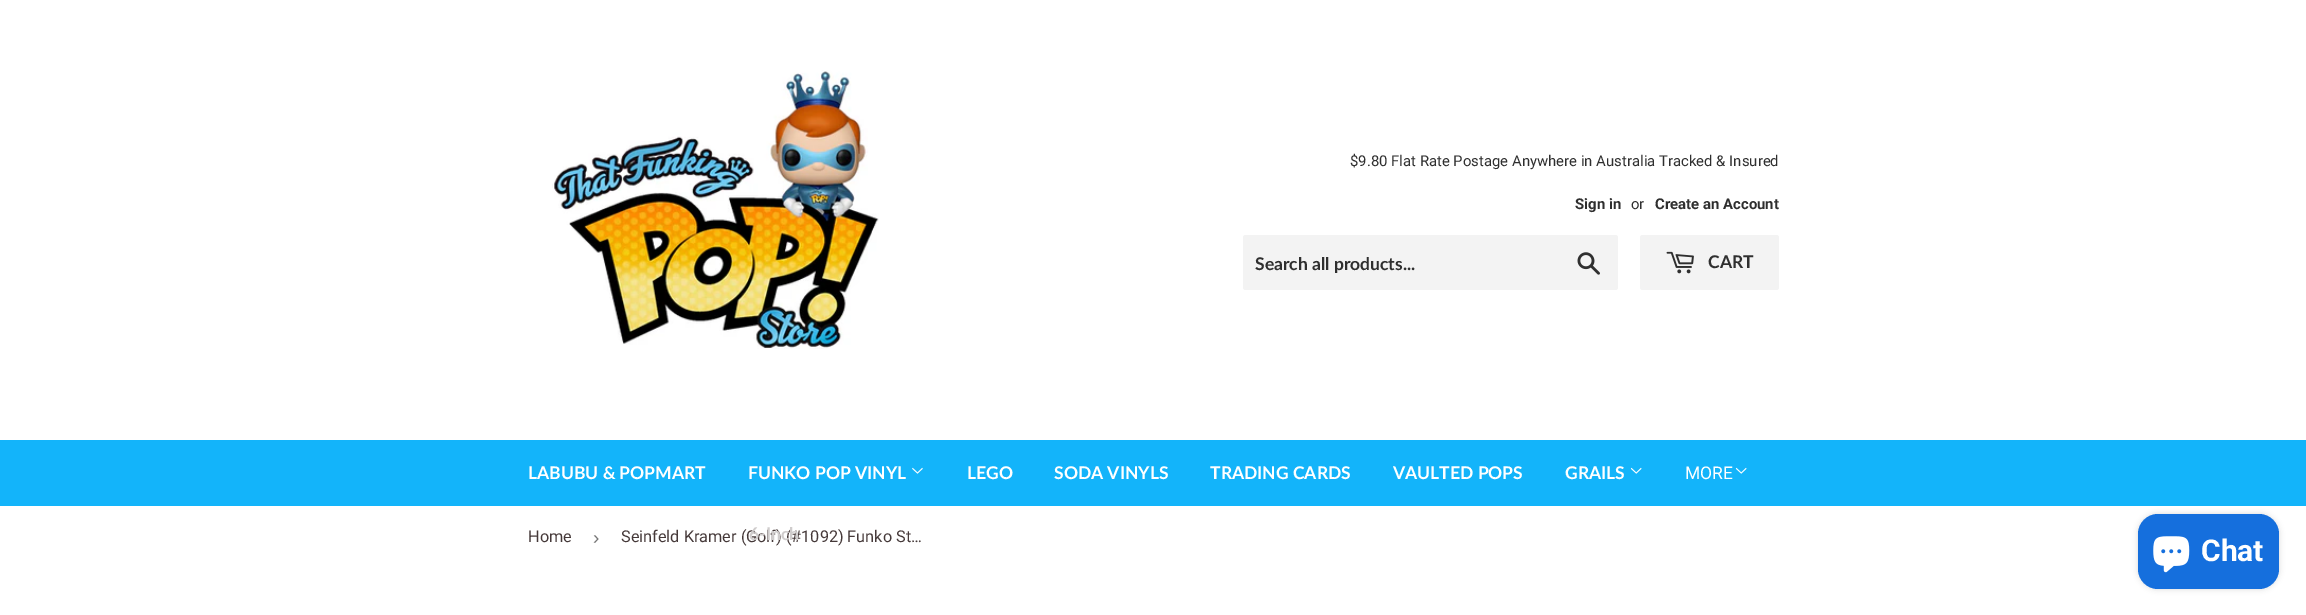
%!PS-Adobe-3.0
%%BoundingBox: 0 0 2306 615
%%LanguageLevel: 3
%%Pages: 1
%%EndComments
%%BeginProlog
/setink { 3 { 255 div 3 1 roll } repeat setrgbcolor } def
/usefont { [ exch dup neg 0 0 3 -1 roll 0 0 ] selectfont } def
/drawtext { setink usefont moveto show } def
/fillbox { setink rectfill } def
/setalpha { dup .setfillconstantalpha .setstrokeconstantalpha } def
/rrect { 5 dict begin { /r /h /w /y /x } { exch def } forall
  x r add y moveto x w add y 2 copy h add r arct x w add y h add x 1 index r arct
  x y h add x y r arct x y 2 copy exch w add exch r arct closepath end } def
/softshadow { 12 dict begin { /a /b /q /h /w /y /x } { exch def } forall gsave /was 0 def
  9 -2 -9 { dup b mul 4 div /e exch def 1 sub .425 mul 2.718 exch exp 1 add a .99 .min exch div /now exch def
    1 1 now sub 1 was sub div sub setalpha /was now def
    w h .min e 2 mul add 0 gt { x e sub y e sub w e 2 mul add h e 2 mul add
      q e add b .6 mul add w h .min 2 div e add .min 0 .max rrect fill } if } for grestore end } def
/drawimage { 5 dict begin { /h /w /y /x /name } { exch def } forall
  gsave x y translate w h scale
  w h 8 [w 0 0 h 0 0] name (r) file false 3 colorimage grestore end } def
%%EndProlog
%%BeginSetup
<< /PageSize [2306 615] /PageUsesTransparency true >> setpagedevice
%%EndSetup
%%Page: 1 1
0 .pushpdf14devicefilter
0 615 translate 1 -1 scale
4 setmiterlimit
0 0 2306 615 255 255 255 fillbox
(assets/img1.rgb) 552 70 327 279 drawimage
($9.80 Flat Rate Postage Anywhere in Australia Tracked & Insured) 1350 166 /Roboto-Regular 14.9 47 47 47 drawtext
(Sign in) 1575 209 /Roboto-Bold 14.9 47 47 47 drawtext
(or) 1631 209 /Roboto-Regular 14.9 47 47 47 drawtext
(Create an Account) 1655 209 /Roboto-Bold 14.9 47 47 47 drawtext
243 243 243 setink
1243 235 375 55 2.5 rrect fill
(Search all products...) 1255 270 /Lato-Bold 17.5 47 47 47 drawtext
(assets/img2.rgb) 1577 252 23 23 drawimage
243 243 243 setink
1640 235 139 55 2.5 rrect fill
(assets/img3.rgb) 1666 251 28 23 drawimage
(CART) 1708 268 /Lato-Bold 17.5 47 47 47 drawtext
0 440 2306 66 19 180 250 fillbox
(LABUBU & POPMART) 528 479 /Lato-Bold 17.5 255 255 255 drawtext
(FUNKO POP VINYL) 748 479 /Lato-Bold 17.5 255 255 255 drawtext
(assets/img4.rgb) 912 467 11 7 drawimage
(Seinfeld Kramer \(Golf\) \(#1092\) Funko St…) 621 542 /Roboto-Regular 16.25 69 57 57 drawtext
(6-Inch) 749 540 /Lato-Bold 17.5 207 204 204 drawtext
(LEGO) 967 479 /Lato-Bold 17.5 255 255 255 drawtext
(SODA VINYLS) 1054 479 /Lato-Bold 17.5 255 255 255 drawtext
(TRADING CARDS) 1210 479 /Lato-Bold 17.5 255 255 255 drawtext
(VAULTED POPS) 1393 479 /Lato-Bold 17.5 255 255 255 drawtext
(GRAILS) 1565 479 /Lato-Bold 17.5 255 255 255 drawtext
(assets/img5.rgb) 1630 467 12 7 drawimage
(MORE) 1685 479 /Roboto-Regular 17.5 255 255 255 drawtext
(assets/img5.rgb) 1735 467 12 7 drawimage
(Home) 528 542 /Roboto-Regular 16.25 69 57 57 drawtext
(›) 593 544 /LiberationSans-Regular 19 118 118 118 drawtext
0 0 0 setink
2138 514 141 75 20 3 0.15 softshadow
21 111 221 setink
2138 514 141 75 20 rrect fill
(assets/img6.rgb) 2153 536 37 37 drawimage
(Chat) 2201 561 /Roboto-Bold 30 255 255 255 drawtext
.poppdf14devicefilter showpage
%%EOF
